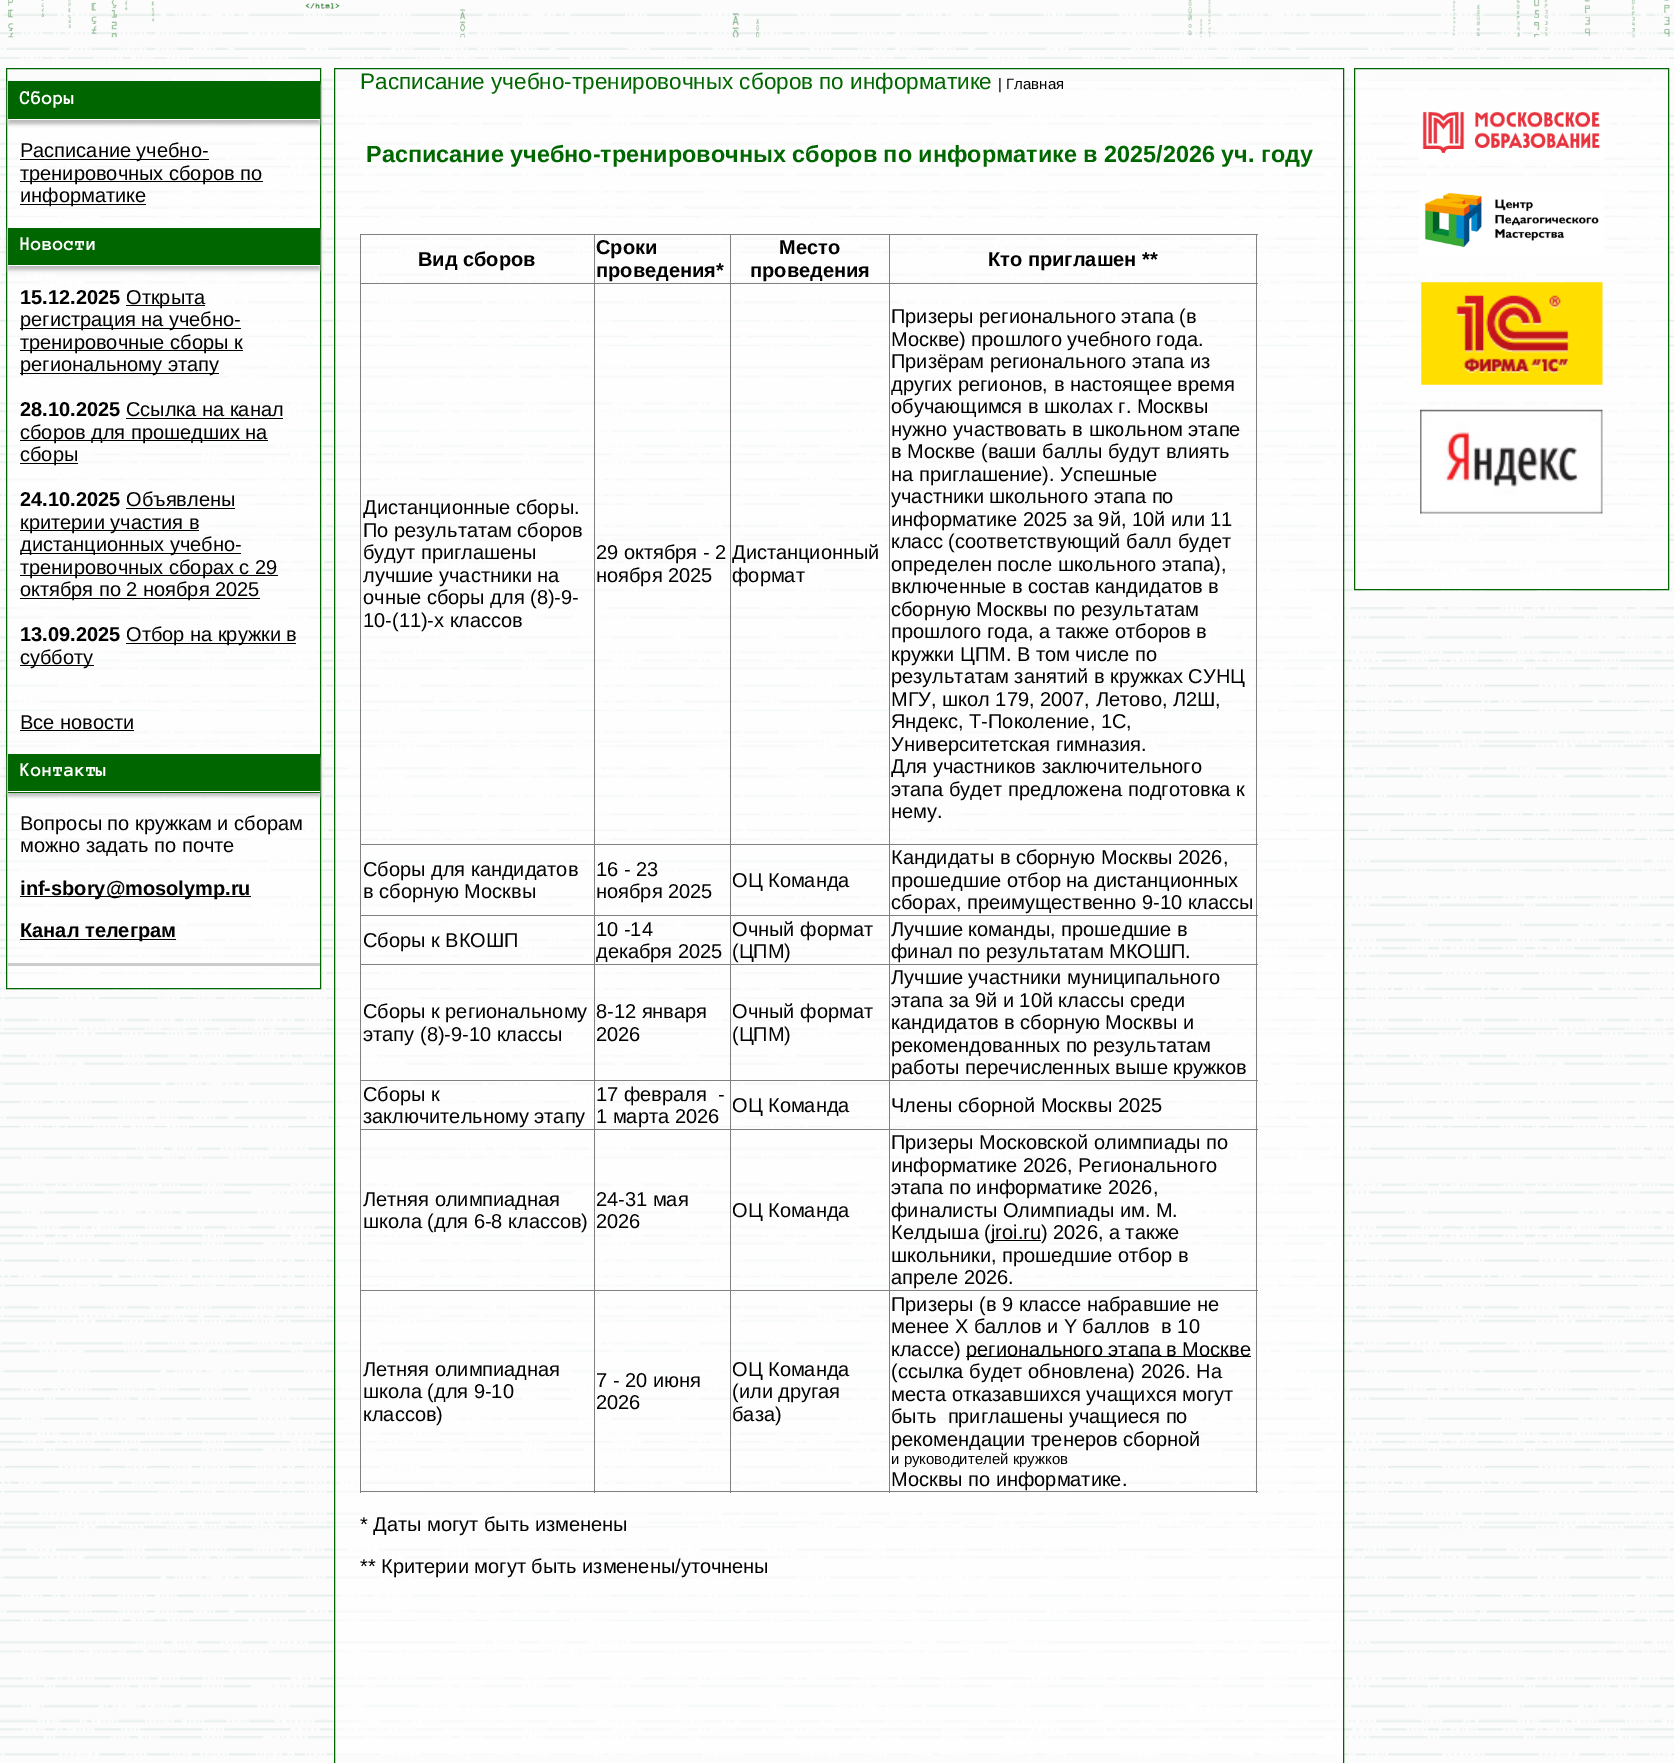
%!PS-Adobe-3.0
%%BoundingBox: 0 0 1674 1763
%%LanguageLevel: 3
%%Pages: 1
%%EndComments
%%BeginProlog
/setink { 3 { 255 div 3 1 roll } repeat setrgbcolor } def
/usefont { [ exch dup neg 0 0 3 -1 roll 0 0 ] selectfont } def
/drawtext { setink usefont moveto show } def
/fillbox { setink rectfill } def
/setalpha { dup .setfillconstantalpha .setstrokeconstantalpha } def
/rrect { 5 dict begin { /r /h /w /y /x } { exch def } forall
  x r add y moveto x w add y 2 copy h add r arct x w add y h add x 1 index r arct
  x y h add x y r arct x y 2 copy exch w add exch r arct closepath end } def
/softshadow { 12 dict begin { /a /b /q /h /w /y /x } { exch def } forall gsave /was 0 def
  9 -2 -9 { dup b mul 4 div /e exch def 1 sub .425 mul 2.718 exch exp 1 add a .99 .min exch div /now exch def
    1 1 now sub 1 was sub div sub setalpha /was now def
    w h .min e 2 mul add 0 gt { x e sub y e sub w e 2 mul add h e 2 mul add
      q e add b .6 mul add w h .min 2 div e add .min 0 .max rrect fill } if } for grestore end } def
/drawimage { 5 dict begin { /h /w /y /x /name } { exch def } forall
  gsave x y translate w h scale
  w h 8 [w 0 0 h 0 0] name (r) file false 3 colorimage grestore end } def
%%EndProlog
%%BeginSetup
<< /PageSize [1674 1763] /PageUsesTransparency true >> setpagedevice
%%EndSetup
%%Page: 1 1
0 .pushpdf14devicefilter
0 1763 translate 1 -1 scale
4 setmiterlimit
0 0 1674 1763 255 255 255 fillbox
(assets/img1.rgb) 0 0 1674 1763 drawimage
(assets/img2.rgb) 8 0 1662 38 drawimage
0.61 setalpha
7 78 315 911 255 255 255 fillbox
1 setalpha
0 102 0 setink
6.5 68.5 314 920 rectstroke
183 183 183 setink
8 85 312 39 0 2 1 softshadow
8 81 312 38 0 102 0 fillbox
8 119 312 1 255 255 255 fillbox
(Сборы) 20 104 /AnonymousPro-Bold 20 255 255 255 drawtext
20 159 189 1 0 0 0 fillbox
(Расписание учебно-) 20 157 /LiberationSans-Regular 20 0 0 0 drawtext
20 181 243 1 0 0 0 fillbox
(тренировочных сборов по) 20 180 /LiberationSans-Regular 20 0 0 0 drawtext
20 204 126 1 0 0 0 fillbox
(информатике) 20 202 /LiberationSans-Regular 20 0 0 0 drawtext
183 183 183 setink
8 231 312 39 0 2 1 softshadow
8 228 312 37 0 102 0 fillbox
8 265 312 1 255 255 255 fillbox
(Новости) 20 250 /AnonymousPro-Bold 20 255 255 255 drawtext
(15.12.2025) 20 304 /LiberationSans-Bold 20 0 0 0 drawtext
126 305 79 1 0 0 0 fillbox
(Открыта) 126 304 /LiberationSans-Regular 20 0 0 0 drawtext
20 328 221 1 0 0 0 fillbox
(регистрация на учебно-) 20 326 /LiberationSans-Regular 20 0 0 0 drawtext
20 350 223 1 0 0 0 fillbox
(тренировочные сборы к) 20 349 /LiberationSans-Regular 20 0 0 0 drawtext
20 373 199 1 0 0 0 fillbox
(региональному этапу) 20 371 /LiberationSans-Regular 20 0 0 0 drawtext
(28.10.2025) 20 416 /LiberationSans-Bold 20 0 0 0 drawtext
(Ссылка на канал) 126 416 /LiberationSans-Regular 20 0 0 0 drawtext
126 418 157 1 0 0 0 fillbox
20 440 248 1 0 0 0 fillbox
(сборов для прошедших на) 20 439 /LiberationSans-Regular 20 0 0 0 drawtext
20 463 58 1 0 0 0 fillbox
(сборы) 20 461 /LiberationSans-Regular 20 0 0 0 drawtext
(24.10.2025) 20 506 /LiberationSans-Bold 20 0 0 0 drawtext
(Объявлены) 126 506 /LiberationSans-Regular 20 0 0 0 drawtext
126 508 109 1 0 0 0 fillbox
20 530 179 1 0 0 0 fillbox
(критерии участия в) 20 529 /LiberationSans-Regular 20 0 0 0 drawtext
20 553 221 1 0 0 0 fillbox
(дистанционных учебно-) 20 551 /LiberationSans-Regular 20 0 0 0 drawtext
20 575 258 1 0 0 0 fillbox
(тренировочных сборах с 29) 20 574 /LiberationSans-Regular 20 0 0 0 drawtext
20 598 240 1 0 0 0 fillbox
(октября по 2 ноября 2025) 20 596 /LiberationSans-Regular 20 0 0 0 drawtext
(13.09.2025) 20 641 /LiberationSans-Bold 20 0 0 0 drawtext
126 643 170 1 0 0 0 fillbox
(Отбор на кружки в) 126 641 /LiberationSans-Regular 20 0 0 0 drawtext
20 665 74 1 0 0 0 fillbox
(субботу) 20 664 /LiberationSans-Regular 20 0 0 0 drawtext
(Все новости) 20 729 /LiberationSans-Regular 20 0 0 0 drawtext
20 730 114 1 0 0 0 fillbox
183 183 183 setink
8 758 312 38 0 2 1 softshadow
8 754 312 39 0 102 0 fillbox
8 791 312 1 255 255 255 fillbox
(Контакты) 20 776 /AnonymousPro-Bold 20 255 255 255 drawtext
(Вопросы по кружкам и сборам) 20 830 /LiberationSans-Regular 20 0 0 0 drawtext
(можно задать по почте) 20 852 /LiberationSans-Regular 20 0 0 0 drawtext
20 896 231 1 0 0 0 fillbox
(inf-sbory@mosolymp.ru) 20 895 /LiberationSans-Bold 20 0 0 0 drawtext
20 939 156 1 0 0 0 fillbox
(Канал телеграм) 20 937 /LiberationSans-Bold 20 0 0 0 drawtext
8 963 312 3 204 204 204 fillbox
0.61 setalpha
333 78 1010 1678 255 255 255 fillbox
1 setalpha
0 102 0 setink
334.5 68.5 1009 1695 rectstroke
(Расписание учебно-тренировочных сборов по информатике) 360 89 /LiberationSans-Regular 22.5 0 102 0 drawtext
(| Главная) 998 89 /LiberationSans-Regular 15 0 0 0 drawtext
(Расписание учебно-тренировочных сборов по информатике в 2025/2026 уч. году) 366 162 /LiberationSans-Bold 23.4 0 102 0 drawtext
360 234 898 1 128 128 128 fillbox
1256 234 1 1259 128 128 128 fillbox
360 1491 898 1 128 128 128 fillbox
360 234 1 1259 128 128 128 fillbox
(Вид сборов) 418 266 /LiberationSans-Bold 20 0 0 0 drawtext
889 283 369 1 128 128 128 fillbox
889 844 369 1 128 128 128 fillbox
889 915 369 1 128 128 128 fillbox
889 964 369 1 128 128 128 fillbox
889 1080 369 1 128 128 128 fillbox
889 1129 369 1 128 128 128 fillbox
889 1290 369 1 128 128 128 fillbox
889 1290 1 203 128 128 128 fillbox
730 1290 160 1 128 128 128 fillbox
889 1129 1 162 128 128 128 fillbox
730 1129 160 1 128 128 128 fillbox
889 1080 1 50 128 128 128 fillbox
730 1080 160 1 128 128 128 fillbox
889 964 1 117 128 128 128 fillbox
730 964 160 1 128 128 128 fillbox
889 915 1 50 128 128 128 fillbox
730 915 160 1 128 128 128 fillbox
889 844 1 72 128 128 128 fillbox
730 844 160 1 128 128 128 fillbox
889 283 1 562 128 128 128 fillbox
730 283 160 1 128 128 128 fillbox
730 1290 1 203 128 128 128 fillbox
594 1290 137 1 128 128 128 fillbox
730 1129 1 162 128 128 128 fillbox
594 1129 137 1 128 128 128 fillbox
730 1080 1 50 128 128 128 fillbox
594 1080 137 1 128 128 128 fillbox
730 964 1 117 128 128 128 fillbox
594 964 137 1 128 128 128 fillbox
730 915 1 50 128 128 128 fillbox
594 915 137 1 128 128 128 fillbox
730 844 1 72 128 128 128 fillbox
594 844 137 1 128 128 128 fillbox
730 283 1 562 128 128 128 fillbox
594 283 137 1 128 128 128 fillbox
594 1290 1 203 128 128 128 fillbox
360 1290 235 1 128 128 128 fillbox
594 1129 1 162 128 128 128 fillbox
360 1129 235 1 128 128 128 fillbox
594 1080 1 50 128 128 128 fillbox
360 1080 235 1 128 128 128 fillbox
594 964 1 117 128 128 128 fillbox
360 964 235 1 128 128 128 fillbox
594 915 1 50 128 128 128 fillbox
360 915 235 1 128 128 128 fillbox
594 844 1 72 128 128 128 fillbox
360 844 235 1 128 128 128 fillbox
594 283 1 562 128 128 128 fillbox
360 283 235 1 128 128 128 fillbox
594 234 1 50 128 128 128 fillbox
(Сроки) 596 254 /LiberationSans-Bold 20 0 0 0 drawtext
(проведения*) 596 277 /LiberationSans-Bold 20 0 0 0 drawtext
730 234 1 50 128 128 128 fillbox
(Место) 779 254 /LiberationSans-Bold 20 0 0 0 drawtext
(проведения) 750 277 /LiberationSans-Bold 20 0 0 0 drawtext
889 234 1 50 128 128 128 fillbox
(Кто приглашен **) 988 266 /LiberationSans-Bold 20 0 0 0 drawtext
(Дистанционные сборы.) 363 514 /LiberationSans-Regular 20 0 0 0 drawtext
(По результатам сборов) 363 537 /LiberationSans-Regular 20 0 0 0 drawtext
(будут приглашены) 363 559 /LiberationSans-Regular 20 0 0 0 drawtext
(лучшие участники на) 363 582 /LiberationSans-Regular 20 0 0 0 drawtext
(очные сборы для \(8\)-9-) 363 604 /LiberationSans-Regular 20 0 0 0 drawtext
(10-\(11\)-х классов) 363 627 /LiberationSans-Regular 20 0 0 0 drawtext
(29 октября - 2) 596 559 /LiberationSans-Regular 20 0 0 0 drawtext
(ноября 2025) 596 582 /LiberationSans-Regular 20 0 0 0 drawtext
(Дистанционный) 732 559 /LiberationSans-Regular 20 0 0 0 drawtext
(формат) 732 582 /LiberationSans-Regular 20 0 0 0 drawtext
(Призеры регионального этапа \(в) 891 323 /LiberationSans-Regular 20 0 0 0 drawtext
(Москве\) прошлого учебного года.) 891 346 /LiberationSans-Regular 20 0 0 0 drawtext
(Призёрам регионального этапа из) 891 368 /LiberationSans-Regular 20 0 0 0 drawtext
(других регионов, в настоящее время) 891 391 /LiberationSans-Regular 20 0 0 0 drawtext
(обучающимся в школах г. Москвы) 891 413 /LiberationSans-Regular 20 0 0 0 drawtext
(нужно участвовать в школьном этапе) 891 436 /LiberationSans-Regular 20 0 0 0 drawtext
(в Москве \(ваши баллы будут влиять) 891 458 /LiberationSans-Regular 20 0 0 0 drawtext
(на приглашение\). Успешные) 891 481 /LiberationSans-Regular 20 0 0 0 drawtext
(участники школьного этапа по) 891 503 /LiberationSans-Regular 20 0 0 0 drawtext
(информатике 2025 за 9й, 10й или 11) 891 526 /LiberationSans-Regular 20 0 0 0 drawtext
(класс \(соответствующий балл будет) 891 548 /LiberationSans-Regular 20 0 0 0 drawtext
(определен после школьного этапа\),) 891 571 /LiberationSans-Regular 20 0 0 0 drawtext
(включенные в состав кандидатов в) 891 593 /LiberationSans-Regular 20 0 0 0 drawtext
(сборную Москвы по результатам) 891 616 /LiberationSans-Regular 20 0 0 0 drawtext
(прошлого года, а также отборов в) 891 638 /LiberationSans-Regular 20 0 0 0 drawtext
(кружки ЦПМ. В том числе по) 891 661 /LiberationSans-Regular 20 0 0 0 drawtext
(результатам занятий в кружках СУНЦ) 891 683 /LiberationSans-Regular 20 0 0 0 drawtext
(МГУ, школ 179, 2007, Летово, Л2Ш,) 891 706 /LiberationSans-Regular 20 0 0 0 drawtext
(Яндекс, Т-Поколение, 1С,) 891 728 /LiberationSans-Regular 20 0 0 0 drawtext
(Университетская гимназия.) 891 751 /LiberationSans-Regular 20 0 0 0 drawtext
(Для участников заключительного) 891 773 /LiberationSans-Regular 20 0 0 0 drawtext
(этапа будет предложена подготовка к) 891 796 /LiberationSans-Regular 20 0 0 0 drawtext
(нему.) 891 818 /LiberationSans-Regular 20 0 0 0 drawtext
(Сборы для кандидатов) 363 876 /LiberationSans-Regular 20 0 0 0 drawtext
(в сборную Москвы) 363 898 /LiberationSans-Regular 20 0 0 0 drawtext
(16 - 23) 596 876 /LiberationSans-Regular 20 0 0 0 drawtext
(ноября 2025) 596 898 /LiberationSans-Regular 20 0 0 0 drawtext
(ОЦ Команда) 732 887 /LiberationSans-Regular 20 0 0 0 drawtext
(Кандидаты в сборную Москвы 2026,) 891 864 /LiberationSans-Regular 20 0 0 0 drawtext
(прошедшие отбор на дистанционных) 891 887 /LiberationSans-Regular 20 0 0 0 drawtext
(сборах, преимущественно 9-10 классы) 891 909 /LiberationSans-Regular 20 0 0 0 drawtext
(Сборы к ВКОШП) 363 947 /LiberationSans-Regular 20 0 0 0 drawtext
(10 -14) 596 936 /LiberationSans-Regular 20 0 0 0 drawtext
(декабря 2025) 596 958 /LiberationSans-Regular 20 0 0 0 drawtext
(Очный формат) 732 936 /LiberationSans-Regular 20 0 0 0 drawtext
(\(ЦПМ\)) 732 958 /LiberationSans-Regular 20 0 0 0 drawtext
(Лучшие команды, прошедшие в) 891 936 /LiberationSans-Regular 20 0 0 0 drawtext
(финал по результатам МКОШП.) 891 958 /LiberationSans-Regular 20 0 0 0 drawtext
(Сборы к региональному) 363 1018 /LiberationSans-Regular 20 0 0 0 drawtext
(этапу \(8\)-9-10 классы) 363 1041 /LiberationSans-Regular 20 0 0 0 drawtext
(8-12 января) 596 1018 /LiberationSans-Regular 20 0 0 0 drawtext
(2026) 596 1041 /LiberationSans-Regular 20 0 0 0 drawtext
(Очный формат) 732 1018 /LiberationSans-Regular 20 0 0 0 drawtext
(\(ЦПМ\)) 732 1041 /LiberationSans-Regular 20 0 0 0 drawtext
(Лучшие участники муниципального) 891 984 /LiberationSans-Regular 20 0 0 0 drawtext
(этапа за 9й и 10й классы среди) 891 1007 /LiberationSans-Regular 20 0 0 0 drawtext
(кандидатов в сборную Москвы и) 891 1029 /LiberationSans-Regular 20 0 0 0 drawtext
(рекомендованных по результатам) 891 1052 /LiberationSans-Regular 20 0 0 0 drawtext
(работы перечисленных выше кружков) 891 1074 /LiberationSans-Regular 20 0 0 0 drawtext
(Сборы к) 363 1101 /LiberationSans-Regular 20 0 0 0 drawtext
(заключительному этапу) 363 1123 /LiberationSans-Regular 20 0 0 0 drawtext
(17 февраля  -) 596 1101 /LiberationSans-Regular 20 0 0 0 drawtext
(1 марта 2026) 596 1123 /LiberationSans-Regular 20 0 0 0 drawtext
(ОЦ Команда) 732 1112 /LiberationSans-Regular 20 0 0 0 drawtext
(Члены сборной Москвы 2025) 891 1112 /LiberationSans-Regular 20 0 0 0 drawtext
(Летняя олимпиадная) 363 1206 /LiberationSans-Regular 20 0 0 0 drawtext
(школа \(для 6-8 классов\)) 363 1228 /LiberationSans-Regular 20 0 0 0 drawtext
(24-31 мая) 596 1206 /LiberationSans-Regular 20 0 0 0 drawtext
(2026) 596 1228 /LiberationSans-Regular 20 0 0 0 drawtext
(ОЦ Команда) 732 1217 /LiberationSans-Regular 20 0 0 0 drawtext
(Призеры Московской олимпиады по) 891 1149 /LiberationSans-Regular 20 0 0 0 drawtext
(информатике 2026, Регионального) 891 1172 /LiberationSans-Regular 20 0 0 0 drawtext
(этапа по информатике 2026,) 891 1194 /LiberationSans-Regular 20 0 0 0 drawtext
(финалисты Олимпиады им. М.) 891 1217 /LiberationSans-Regular 20 0 0 0 drawtext
(Келдыша \() 891 1239 /LiberationSans-Regular 20 0 0 0 drawtext
991 1240 50 1 0 0 0 fillbox
(jroi.ru\) 2026, а также) 991 1239 /LiberationSans-Regular 20 0 0 0 drawtext
(школьники, прошедшие отбор в) 891 1262 /LiberationSans-Regular 20 0 0 0 drawtext
(апреле 2026.) 891 1284 /LiberationSans-Regular 20 0 0 0 drawtext
(Летняя олимпиадная) 363 1376 /LiberationSans-Regular 20 0 0 0 drawtext
(школа \(для 9-10) 363 1398 /LiberationSans-Regular 20 0 0 0 drawtext
(классов\)) 363 1421 /LiberationSans-Regular 20 0 0 0 drawtext
(7 - 20 июня) 596 1387 /LiberationSans-Regular 20 0 0 0 drawtext
(2026) 596 1409 /LiberationSans-Regular 20 0 0 0 drawtext
(ОЦ Команда) 732 1376 /LiberationSans-Regular 20 0 0 0 drawtext
(\(или другая) 732 1398 /LiberationSans-Regular 20 0 0 0 drawtext
(база\)) 732 1421 /LiberationSans-Regular 20 0 0 0 drawtext
(Призеры \(в 9 классе набравшие не) 891 1311 /LiberationSans-Regular 20 0 0 0 drawtext
(менее X баллов и Y баллов  в 10) 891 1333 /LiberationSans-Regular 20 0 0 0 drawtext
(классе\)) 891 1356 /LiberationSans-Regular 20 0 0 0 drawtext
966 1356 285 1 0 0 0 fillbox
(регионального этапа в Москве) 966 1356 /LiberationSans-Regular 20 0 0 0 drawtext
(\(ссылка будет обновлена\) 2026. На) 891 1378 /LiberationSans-Regular 20 0 0 0 drawtext
(места отказавшихся учащихся могут) 891 1401 /LiberationSans-Regular 20 0 0 0 drawtext
(быть  приглашены учащиеся по) 891 1423 /LiberationSans-Regular 20 0 0 0 drawtext
(рекомендации тренеров сборной) 891 1446 /LiberationSans-Regular 20 0 0 0 drawtext
(и руководителей кружков) 891 1464 /LiberationSans-Regular 15 0 0 0 drawtext
(Москвы по информатике.) 891 1486 /LiberationSans-Regular 20 0 0 0 drawtext
(* Даты могут быть изменены) 360 1531 /LiberationSans-Regular 20 0 0 0 drawtext
(** Критерии могут быть изменены/уточнены) 360 1573 /LiberationSans-Regular 20 0 0 0 drawtext
0.61 setalpha
1353 78 315 512 255 255 255 fillbox
1 setalpha
0 102 0 setink
1354.5 68.5 314 521 rectstroke
(assets/img3.rgb) 1419 111 185 49 drawimage
(assets/img4.rgb) 1419 191 185 63 drawimage
(assets/img5.rgb) 1421 282 182 103 drawimage
(assets/img6.rgb) 1420 409 183 105 drawimage
.poppdf14devicefilter showpage
%%EOF
